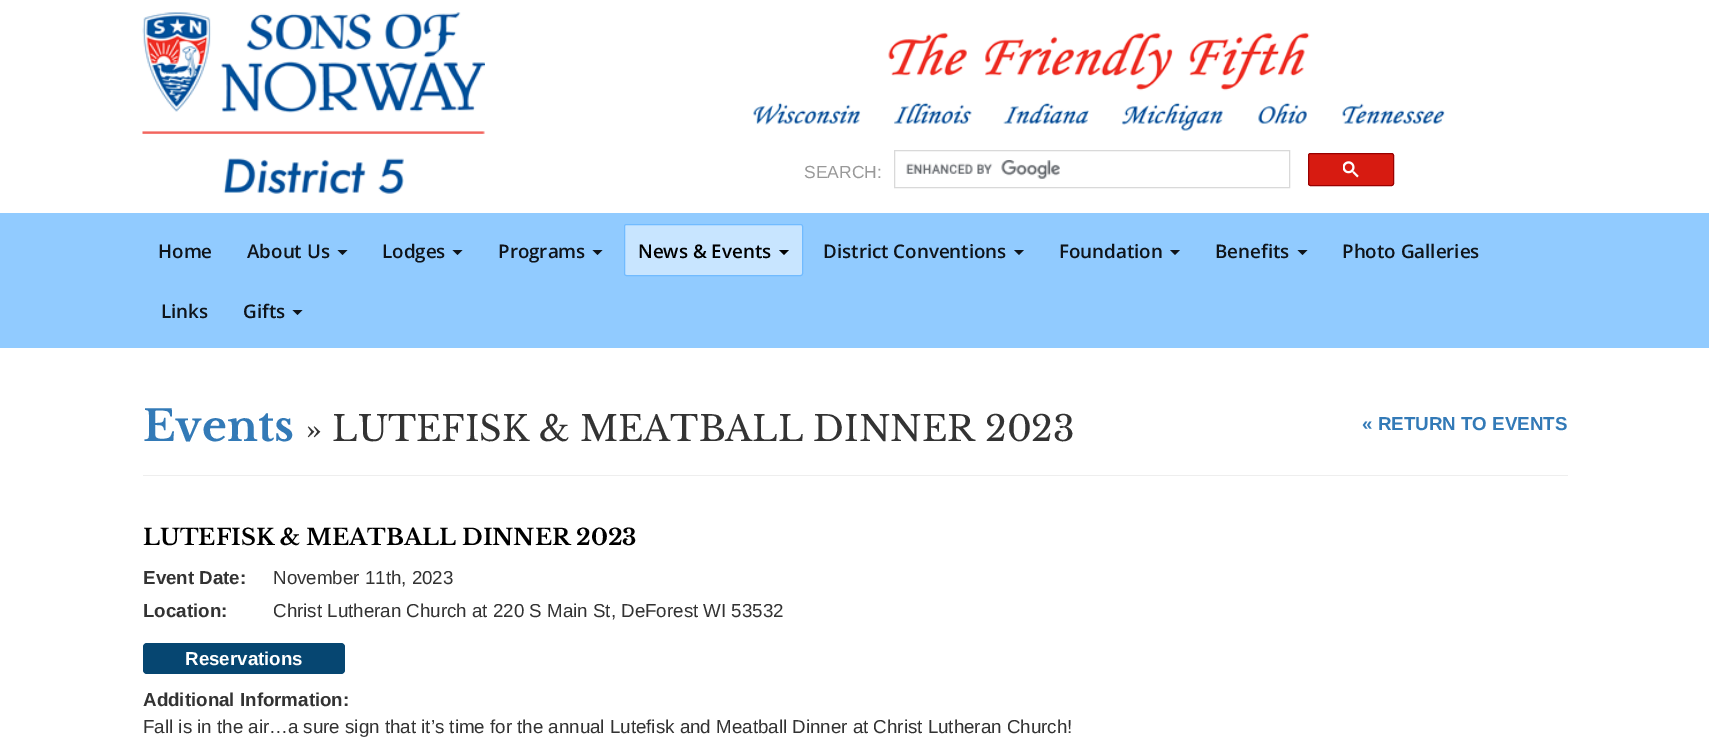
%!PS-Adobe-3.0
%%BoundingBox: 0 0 1709 738
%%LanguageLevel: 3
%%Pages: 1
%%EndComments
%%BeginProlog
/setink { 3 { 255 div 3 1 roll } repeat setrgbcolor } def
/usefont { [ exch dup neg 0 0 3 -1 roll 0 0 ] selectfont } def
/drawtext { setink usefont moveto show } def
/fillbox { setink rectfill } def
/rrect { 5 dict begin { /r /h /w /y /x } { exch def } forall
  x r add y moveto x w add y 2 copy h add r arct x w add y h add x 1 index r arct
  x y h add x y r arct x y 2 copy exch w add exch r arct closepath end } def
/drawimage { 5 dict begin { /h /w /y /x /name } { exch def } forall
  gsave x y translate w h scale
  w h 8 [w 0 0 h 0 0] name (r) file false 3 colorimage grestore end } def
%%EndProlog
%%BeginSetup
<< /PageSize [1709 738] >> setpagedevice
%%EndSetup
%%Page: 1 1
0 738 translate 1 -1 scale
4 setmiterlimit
0 0 1709 738 145 203 255 fillbox
0 0 1709 213 255 255 255 fillbox
(assets/img1.rgb) 142 12 343 182 drawimage
(assets/img2.rgb) 753 32 692 99 drawimage
(SEARCH:) 804 178 /LiberationSans-Regular 17.5 153 153 153 drawtext
217 217 217 setink
894.5 150.5 395 37 rectstroke
(assets/img3.rgb) 906 160 154 19 drawimage
215 27 17 setink
1308.5 153.5 85 32 2 rrect gsave fill grestore
153 0 0 setink
stroke
(assets/img4.rgb) 1343 161 16 17 drawimage
0 348 1709 390 255 255 255 fillbox
(Home) 158 258 /OpenSans-SemiBold 18.75 15 20 26 drawtext
(About Us) 247 258 /OpenSans-SemiBold 18.75 15 20 26 drawtext
337.5 250 moveto 347.5 250 lineto 342.5 255 lineto closepath fill
(Lodges) 382 258 /OpenSans-SemiBold 18.75 15 20 26 drawtext
452.5 250 moveto 462.5 250 lineto 457.5 255 lineto closepath fill
(Programs) 498 258 /OpenSans-SemiBold 18.75 15 20 26 drawtext
592.5 250 moveto 602.5 250 lineto 597.5 255 lineto closepath fill
200 229 255 setink
624.5 224.5 178 51 2 rrect gsave fill grestore
113 187 255 setink
stroke
(News & Events) 638 258 /OpenSans-SemiBold 18.75 0 0 0 drawtext
779 250 moveto 789 250 lineto 784 255 lineto closepath fill
(District Conventions) 823 258 /OpenSans-SemiBold 18.75 15 20 26 drawtext
1014 250 moveto 1024 250 lineto 1019 255 lineto closepath fill
(Foundation) 1059 258 /OpenSans-SemiBold 18.75 15 20 26 drawtext
1170 250 moveto 1180 250 lineto 1175 255 lineto closepath fill
(Benefits) 1215 258 /OpenSans-SemiBold 18.75 15 20 26 drawtext
1297.5 250 moveto 1307.5 250 lineto 1302.5 255 lineto closepath fill
(Photo Galleries) 1342 258 /OpenSans-SemiBold 18.75 15 20 26 drawtext
(Links) 161 318 /OpenSans-SemiBold 18.75 15 20 26 drawtext
(Gifts) 243 318 /OpenSans-SemiBold 18.75 15 20 26 drawtext
292.5 310 moveto 302.5 310 lineto 297.5 315 lineto closepath fill
(Events) 143 441 /LibreBaskerville-Bold 42.5 51 122 183 drawtext
(» LUTEFISK & MEATBALL DINNER 2023) 305 441 /LibreBaskerville-Regular 35 51 51 51 drawtext
(« RETURN TO EVENTS) 1362 430 /LiberationSans-Bold 18.75 51 122 183 drawtext
143 475 1425 1 238 238 238 fillbox
(LUTEFISK & MEATBALL DINNER 2023) 143 545 /LibreBaskerville-Bold 22.5 0 0 0 drawtext
(Event Date:) 143 584 /LiberationSans-Bold 18.75 51 51 51 drawtext
(November 11th, 2023) 273 584 /LiberationSans-Regular 18.75 51 51 51 drawtext
(Location:) 143 617 /LiberationSans-Bold 18.75 51 51 51 drawtext
(Christ Lutheran Church at 220 S Main St, DeForest WI 53532) 273 617 /LiberationSans-Regular 18.75 51 51 51 drawtext
6 70 113 setink
143 643 202 31 4 rrect fill
(Reservations) 185 665 /LiberationSans-Bold 18.75 255 255 255 drawtext
(Additional Information:) 143 706 /LiberationSans-Bold 18.75 51 51 51 drawtext
(Fall is in the air…a sure sign that it’s time for the annual Lutefisk and Meatball Dinner at Christ Lutheran Church!) 143 733 /LiberationSans-Regular 18.75 51 51 51 drawtext
showpage
%%EOF
